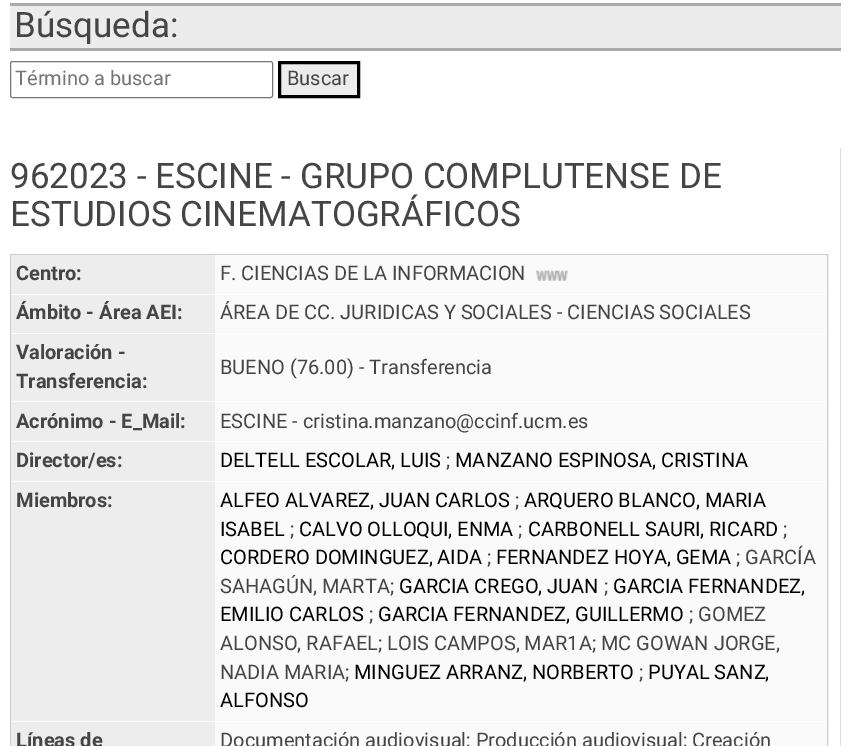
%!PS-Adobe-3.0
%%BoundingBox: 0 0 851 746
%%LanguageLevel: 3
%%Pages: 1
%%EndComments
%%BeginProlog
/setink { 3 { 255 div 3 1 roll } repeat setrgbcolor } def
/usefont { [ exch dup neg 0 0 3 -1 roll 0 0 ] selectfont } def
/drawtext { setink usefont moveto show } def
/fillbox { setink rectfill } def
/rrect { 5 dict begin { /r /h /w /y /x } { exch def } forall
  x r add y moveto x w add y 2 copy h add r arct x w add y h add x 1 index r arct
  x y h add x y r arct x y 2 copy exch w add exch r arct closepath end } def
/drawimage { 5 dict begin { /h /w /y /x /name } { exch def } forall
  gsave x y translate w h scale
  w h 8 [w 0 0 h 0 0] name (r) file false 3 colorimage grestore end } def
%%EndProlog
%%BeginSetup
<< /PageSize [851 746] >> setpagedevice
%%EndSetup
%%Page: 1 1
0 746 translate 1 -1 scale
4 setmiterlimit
0 0 851 746 255 255 255 fillbox
10 6 831 42 236 236 236 fillbox
10 3 831 3 170 170 170 fillbox
10 48 831 3 170 170 170 fillbox
(Búsqueda:) 14 37 /Roboto-Regular 35 69 69 69 drawtext
118 118 118 setink
10.5 61.5 262 36 2 rrect stroke
(Término a buscar) 15 85 /Roboto-Regular 20 117 117 117 drawtext
236 236 236 setink
279.5 62.5 moveto 358.5 62.5 lineto 358.5 96.5 lineto 279.5 96.5 lineto closepath gsave fill grestore
0 0 0 setink
3 setlinewidth
stroke
(Buscar) 287 85 /Roboto-Regular 20 69 69 69 drawtext
840 148 1 598 221 221 221 fillbox
(962023 - ESCINE - GRUPO COMPLUTENSE DE) 10 188 /Roboto-Regular 35 69 69 69 drawtext
(ESTUDIOS CINEMATOGRÁFICOS) 10 226 /Roboto-Regular 35 69 69 69 drawtext
204 204 204 setink
1 setlinewidth
10.5 254.5 817 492 rectstroke
11 255 204 39 237 237 237 fillbox
(Centro:) 16 280 /Roboto-Bold 20 69 69 69 drawtext
215 255 611 39 250 250 250 fillbox
(F. CIENCIAS DE LA INFORMACION) 220 280 /Roboto-Regular 20 69 69 69 drawtext
(assets/img1.rgb) 536 270 32 11 drawimage
11 295 204 38 237 237 237 fillbox
(Ámbito - Área AEI:) 16 319 /Roboto-Bold 20 69 69 69 drawtext
215 295 611 38 250 250 250 fillbox
(ÁREA DE CC. JURIDICAS Y SOCIALES - CIENCIAS SOCIALES) 220 319 /Roboto-Regular 20 69 69 69 drawtext
11 334 204 412 237 237 237 fillbox
11 401 204 1 255 255 255 fillbox
(Valoración -) 16 359 /Roboto-Bold 20 69 69 69 drawtext
(Transferencia:) 16 388 /Roboto-Bold 20 69 69 69 drawtext
215 334 611 412 250 250 250 fillbox
215 401 611 1 255 255 255 fillbox
(BUENO \(76.00\) - Transferencia) 220 374 /Roboto-Regular 20 69 69 69 drawtext
11 441 815 1 255 255 255 fillbox
(Acrónimo - E_Mail:) 16 428 /Roboto-Bold 20 69 69 69 drawtext
(ESCINE - cristina.manzano@ccinf.ucm.es) 220 428 /Roboto-Regular 20 69 69 69 drawtext
11 481 815 1 255 255 255 fillbox
(Director/es:) 16 467 /Roboto-Bold 20 69 69 69 drawtext
(DELTELL ESCOLAR, LUIS) 220 467 /Roboto-Regular 20 0 0 0 drawtext
(;) 446 467 /Roboto-Regular 20 69 69 69 drawtext
(MANZANO ESPINOSA, CRISTINA) 455 467 /Roboto-Regular 20 0 0 0 drawtext
11 721 815 1 255 255 255 fillbox
(Miembros:) 16 507 /Roboto-Bold 20 69 69 69 drawtext
(ALFEO ALVAREZ, JUAN CARLOS) 220 507 /Roboto-Regular 20 0 0 0 drawtext
(;) 515 507 /Roboto-Regular 20 69 69 69 drawtext
(ARQUERO BLANCO, MARIA) 524 507 /Roboto-Regular 20 0 0 0 drawtext
(ISABEL) 220 536 /Roboto-Regular 20 0 0 0 drawtext
(;) 290 536 /Roboto-Regular 20 69 69 69 drawtext
(CALVO OLLOQUI, ENMA) 299 536 /Roboto-Regular 20 0 0 0 drawtext
(;) 518 536 /Roboto-Regular 20 69 69 69 drawtext
(CARBONELL SAURI, RICARD) 528 536 /Roboto-Regular 20 0 0 0 drawtext
(;) 783 536 /Roboto-Regular 20 69 69 69 drawtext
(CORDERO DOMINGUEZ, AIDA) 220 564 /Roboto-Regular 20 0 0 0 drawtext
(;) 487 564 /Roboto-Regular 20 69 69 69 drawtext
(FERNANDEZ HOYA, GEMA) 496 564 /Roboto-Regular 20 0 0 0 drawtext
(; GARCÍA) 736 564 /Roboto-Regular 20 69 69 69 drawtext
(SAHAGÚN, MARTA;) 220 593 /Roboto-Regular 20 69 69 69 drawtext
(GARCIA CREGO, JUAN) 399 593 /Roboto-Regular 20 0 0 0 drawtext
(;) 604 593 /Roboto-Regular 20 69 69 69 drawtext
(GARCIA FERNANDEZ,) 613 593 /Roboto-Regular 20 0 0 0 drawtext
(EMILIO CARLOS) 220 621 /Roboto-Regular 20 0 0 0 drawtext
(;) 369 621 /Roboto-Regular 20 69 69 69 drawtext
(GARCIA FERNANDEZ, GUILLERMO) 378 621 /Roboto-Regular 20 0 0 0 drawtext
(; GOMEZ) 689 621 /Roboto-Regular 20 69 69 69 drawtext
(ALONSO, RAFAEL; LOIS CAMPOS, MAR1A; MC GOWAN JORGE,) 220 650 /Roboto-Regular 20 69 69 69 drawtext
(NADIA MARIA;) 220 679 /Roboto-Regular 20 69 69 69 drawtext
(MINGUEZ ARRANZ, NORBERTO) 354 679 /Roboto-Regular 20 0 0 0 drawtext
(;) 639 679 /Roboto-Regular 20 69 69 69 drawtext
(PUYAL SANZ,) 648 679 /Roboto-Regular 20 0 0 0 drawtext
(ALFONSO) 220 707 /Roboto-Regular 20 0 0 0 drawtext
(Líneas de) 16 747 /Roboto-Bold 20 69 69 69 drawtext
(Documentación audiovisual; Producción audiovisual; Creación) 220 747 /Roboto-Regular 20 69 69 69 drawtext
showpage
%%EOF
